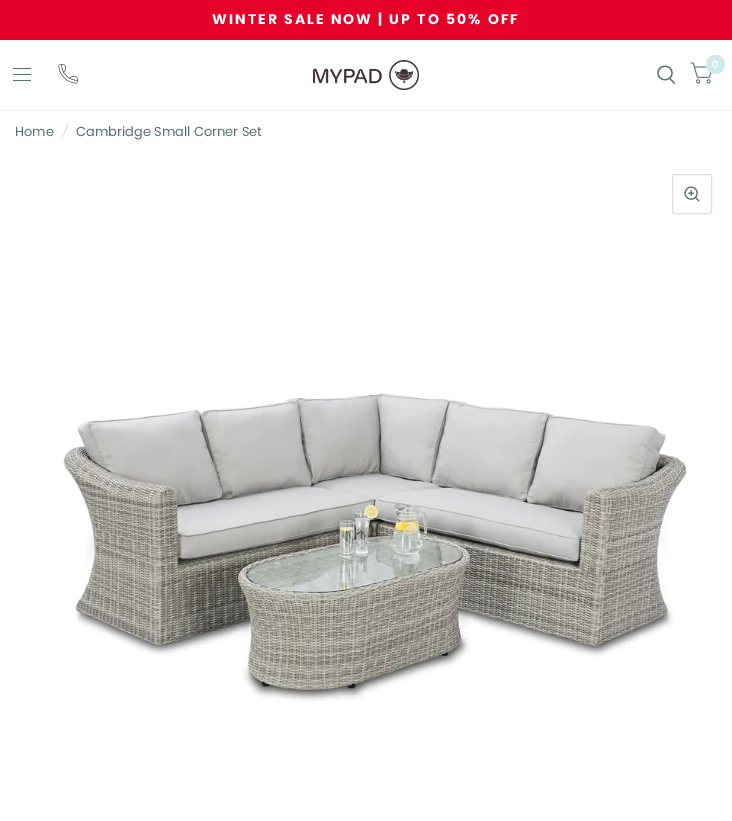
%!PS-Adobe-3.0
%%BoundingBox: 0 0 732 821
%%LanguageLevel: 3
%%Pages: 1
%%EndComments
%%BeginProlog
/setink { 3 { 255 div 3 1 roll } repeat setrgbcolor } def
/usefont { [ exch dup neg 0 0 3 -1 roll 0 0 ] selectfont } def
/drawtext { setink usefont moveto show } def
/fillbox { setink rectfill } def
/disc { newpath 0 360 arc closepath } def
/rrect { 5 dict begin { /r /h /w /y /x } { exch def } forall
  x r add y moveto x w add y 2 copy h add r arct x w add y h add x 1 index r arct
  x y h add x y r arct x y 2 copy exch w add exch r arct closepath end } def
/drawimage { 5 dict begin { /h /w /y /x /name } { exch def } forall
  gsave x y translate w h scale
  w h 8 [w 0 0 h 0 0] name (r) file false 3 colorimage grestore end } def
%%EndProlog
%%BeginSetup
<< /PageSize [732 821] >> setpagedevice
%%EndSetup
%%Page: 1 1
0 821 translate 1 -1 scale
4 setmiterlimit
0 0 732 821 255 255 255 fillbox
0 0 732 40 229 1 39 fillbox
/Poppins-Bold 14 usefont
255 255 255 setink
212 24 moveto 2.1 0 (WINTER SALE NOW | UP TO 50% OFF) ashow
0 110 732 1 238 238 238 fillbox
84 113 113 setink
13 68 18 1 0.5 rrect fill
13 74 18 1 0.5 rrect fill
13 80 18 1 0.5 rrect fill
(assets/img1.rgb) 58 64 20 20 drawimage
(assets/img2.rgb) 312 59 107 31 drawimage
(assets/img3.rgb) 690 62 22 22 drawimage
208 234 236 setink
715.5 64.5 9.5 disc fill
(0) 712 68 /Poppins-SemiBold 10 255 255 255 drawtext
84 113 113 setink
1.2 setlinewidth
1 setlinecap
1 setlinejoin
670 78.5 moveto 674.5 83.5 lineto 672 73 moveto 672 82 658 82 658 73 curveto 658 64 672 64 672 73 curveto closepath stroke
(Home) 15 136 /Poppins-Regular 13 84 113 113 drawtext
(/) 62 136 /Poppins-Italic 13 221 227 227 drawtext
(Cambridge Small Corner Set) 76 136 /Poppins-Regular 13 84 113 113 drawtext
222 222 222 setink
1 setlinewidth
0 setlinecap
0 setlinejoin
672.5 174.5 39 39 2.5 rrect stroke
(assets/img4.rgb) 684 186 16 16 drawimage
(assets/img5.rgb) 63 393 626 309 drawimage
showpage
%%EOF
